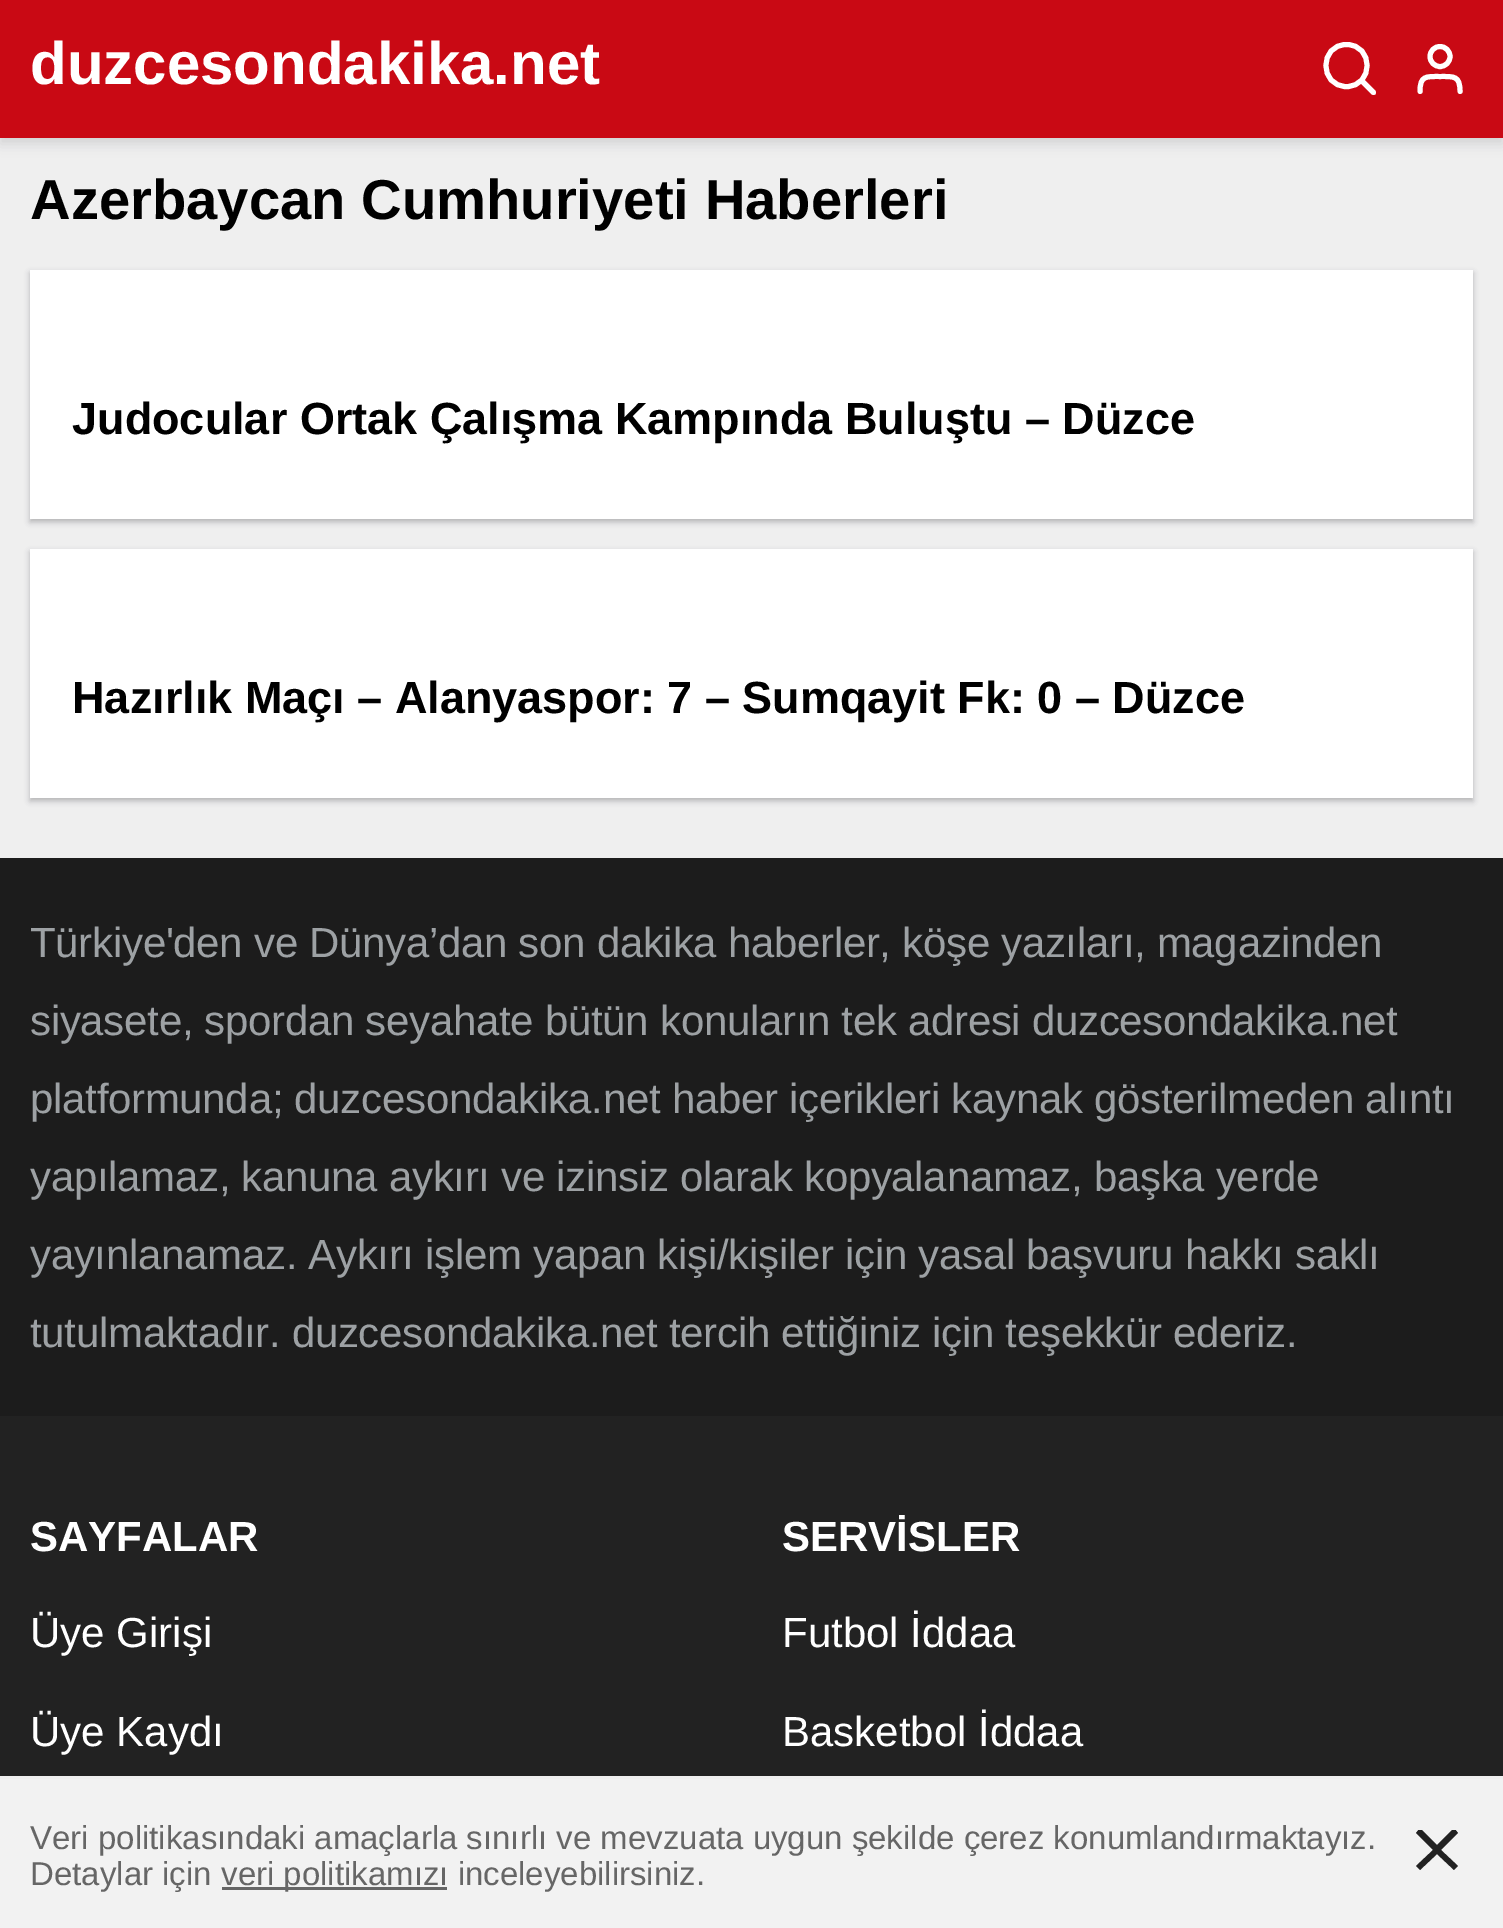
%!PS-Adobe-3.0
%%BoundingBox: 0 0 1503 1928
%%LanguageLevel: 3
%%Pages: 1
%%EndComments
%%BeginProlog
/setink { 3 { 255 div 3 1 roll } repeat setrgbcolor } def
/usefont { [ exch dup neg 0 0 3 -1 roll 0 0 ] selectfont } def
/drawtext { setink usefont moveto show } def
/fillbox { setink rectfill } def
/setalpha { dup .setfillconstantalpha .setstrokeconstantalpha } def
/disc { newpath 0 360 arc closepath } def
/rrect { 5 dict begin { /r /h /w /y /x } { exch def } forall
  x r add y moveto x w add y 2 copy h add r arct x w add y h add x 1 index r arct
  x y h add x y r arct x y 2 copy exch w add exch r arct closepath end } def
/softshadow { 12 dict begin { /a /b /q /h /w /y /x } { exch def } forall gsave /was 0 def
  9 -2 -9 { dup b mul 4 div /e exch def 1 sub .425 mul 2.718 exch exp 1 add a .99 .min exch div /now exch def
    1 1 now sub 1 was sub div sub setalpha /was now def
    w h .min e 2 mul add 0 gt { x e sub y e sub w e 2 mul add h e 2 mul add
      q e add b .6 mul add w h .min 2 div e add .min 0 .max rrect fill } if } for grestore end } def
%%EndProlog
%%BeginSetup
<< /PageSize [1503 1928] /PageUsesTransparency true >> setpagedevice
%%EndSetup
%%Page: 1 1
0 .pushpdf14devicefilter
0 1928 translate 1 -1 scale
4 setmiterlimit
0 0 1503 1928 239 239 239 fillbox
17 21 25 setink
0 6 1503 138 0 6 0.12 softshadow
0 0 1503 138 201 9 20 fillbox
(duzcesondakika.net) 30 84 /LiberationSans-Bold 60 255 255 255 drawtext
5 setlinewidth
1 setlinecap
1 setlinejoin
1346.5 86.5 moveto 1374 86.5 1374 44.5 1346.5 44.5 curveto 1319 44.5 1319 86.5 1346.5 86.5 curveto closepath 1361.5 80.5 moveto 1373.5 92.5 lineto stroke
1460 91.5 moveto 1460 75.5 1454 76.5 1440 76.5 curveto 1426 76.5 1420 75.5 1420 91.5 curveto stroke
0 setlinecap
0 setlinejoin
1440 56.5 10 disc stroke
(Azerbaycan Cumhuriyeti Haberleri) 30 219 /LiberationSans-Bold 56.2 0 0 0 drawtext
17 21 25 setink
30 273 1443 249 0 3 0.27 softshadow
30 270 1443 249 255 255 255 fillbox
(Judocular Ortak Çalışma Kampında Buluştu – Düzce) 72 434 /LiberationSans-Bold 45 0 0 0 drawtext
17 21 25 setink
30 552 1443 249 0 3 0.27 softshadow
30 549 1443 249 255 255 255 fillbox
(Hazırlık Maçı – Alanyaspor: 7 – Sumqayit Fk: 0 – Düzce) 72 713 /LiberationSans-Bold 45 0 0 0 drawtext
0 1416 1503 360 34 34 34 fillbox
0 1779 1503 149 242 242 242 fillbox
0 858 1503 558 28 28 28 fillbox
/LiberationSans-Regular 42 usefont
157 161 164 setink
30 957 moveto -0.3 0 (Türkiye'den ve Dünya’dan son dakika haberler, köşe yazıları, magazinden) ashow
30 1035 moveto -0.3 0 (siyasete, spordan seyahate bütün konuların tek adresi duzcesondakika.net) ashow
30 1113 moveto -0.3 0 (platformunda; duzcesondakika.net haber içerikleri kaynak gösterilmeden alıntı) ashow
30 1191 moveto -0.3 0 (yapılamaz, kanuna aykırı ve izinsiz olarak kopyalanamaz, başka yerde) ashow
30 1269 moveto -0.3 0 (yayınlanamaz. Aykırı işlem yapan kişi/kişiler için yasal başvuru hakkı saklı) ashow
30 1347 moveto -0.3 0 (tutulmaktadır. duzcesondakika.net tercih ettiğiniz için teşekkür ederiz.) ashow
(SAYFALAR) 30 1551 /LiberationSans-Bold 42 255 255 255 drawtext
(Üye Girişi) 30 1647 /LiberationSans-Regular 42 255 255 255 drawtext
(Üye Kaydı) 30 1746 /LiberationSans-Regular 42 255 255 255 drawtext
(SERVİSLER) 782 1551 /LiberationSans-Bold 42 255 255 255 drawtext
(Futbol İddaa) 782 1647 /LiberationSans-Regular 42 255 255 255 drawtext
(Basketbol İddaa) 782 1746 /LiberationSans-Regular 42 255 255 255 drawtext
(Veri politikasındaki amaçlarla sınırlı ve mevzuata uygun şekilde çerez konumlandırmaktayız.) 30 1849 /LiberationSans-Regular 33 102 102 102 drawtext
(Detaylar için) 30 1885 /LiberationSans-Regular 33 102 102 102 drawtext
222 1887 225 3 102 102 102 fillbox
(veri politikamızı inceleyebilirsiniz.) 221 1885 /LiberationSans-Regular 33 102 102 102 drawtext
gsave
1416 1830 42 42 rectclip
34 34 34 setink
1458 1833 moveto 1454 1828 lineto 1437 1845 lineto 1420 1828 lineto 1416 1833 lineto 1433 1850 lineto 1416 1866 lineto 1420 1870 lineto 1437 1854 lineto 1454 1870 lineto 1458 1866 lineto 1441 1850 lineto closepath fill
grestore
.poppdf14devicefilter showpage
%%EOF
